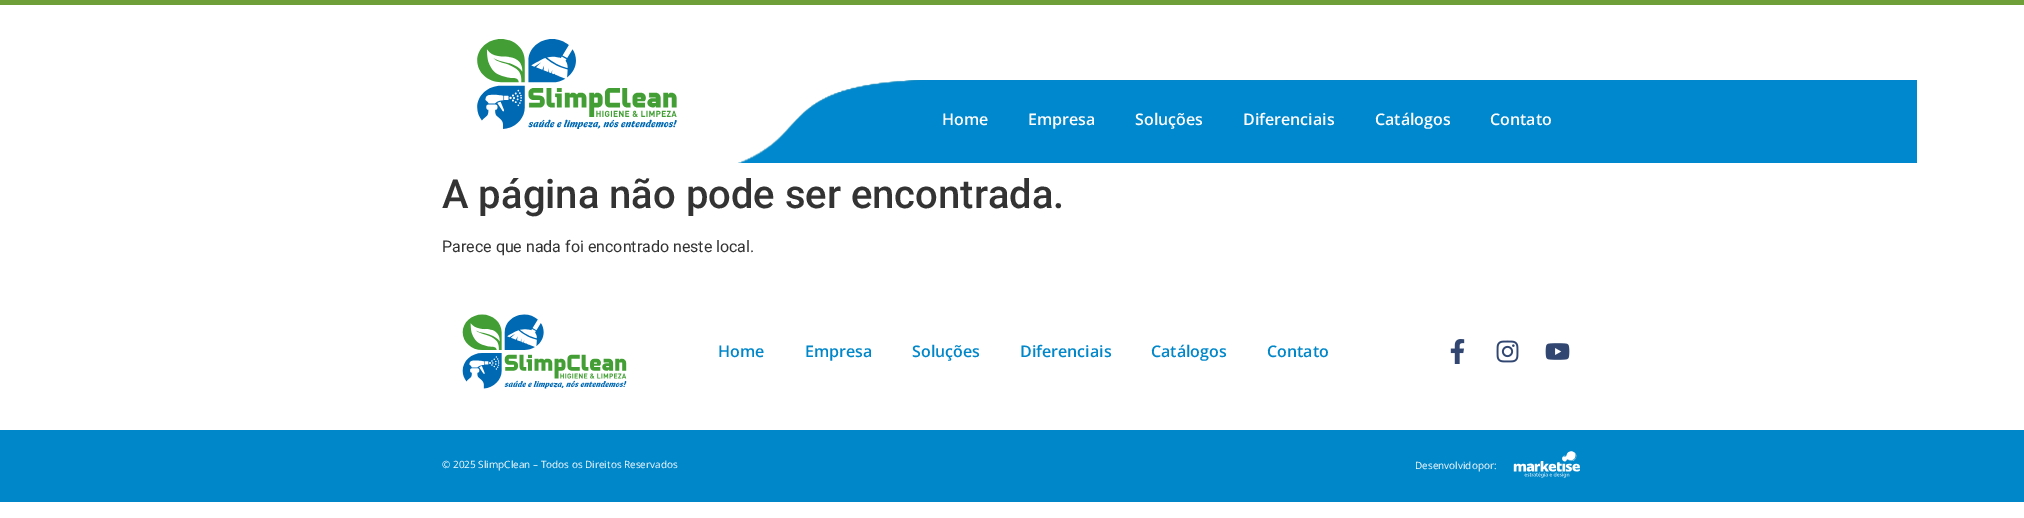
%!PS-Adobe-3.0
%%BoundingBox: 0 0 2024 518
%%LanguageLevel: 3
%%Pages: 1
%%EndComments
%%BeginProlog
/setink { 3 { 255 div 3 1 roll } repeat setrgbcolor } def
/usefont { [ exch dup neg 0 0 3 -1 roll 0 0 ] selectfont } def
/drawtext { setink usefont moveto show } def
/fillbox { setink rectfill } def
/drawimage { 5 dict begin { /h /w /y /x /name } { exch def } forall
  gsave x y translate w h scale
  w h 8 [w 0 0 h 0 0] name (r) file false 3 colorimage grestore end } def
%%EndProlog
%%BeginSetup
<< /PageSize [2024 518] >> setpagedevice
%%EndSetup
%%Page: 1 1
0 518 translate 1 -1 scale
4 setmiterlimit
0 0 2024 518 255 255 255 fillbox
(assets/img1.rgb) 738 80 1179 83 drawimage
0 0 2024 5 110 159 57 fillbox
(assets/img2.rgb) 477 39 200 90 drawimage
(Home) 942 125 /OpenSans-SemiBold 16 255 255 255 drawtext
(Empresa) 1028 125 /OpenSans-SemiBold 16 255 255 255 drawtext
(Soluções) 1135 125 /OpenSans-SemiBold 16 255 255 255 drawtext
(Diferenciais) 1243 125 /OpenSans-SemiBold 16 255 255 255 drawtext
(Catálogos) 1375 125 /OpenSans-SemiBold 16 255 255 255 drawtext
(Contato) 1490 125 /OpenSans-SemiBold 16 255 255 255 drawtext
(A página não pode ser encontrada.) 442 208 /Roboto-Medium 40 51 51 51 drawtext
(Parece que nada foi encontrado neste local.) 442 252 /Roboto-Regular 16 51 51 51 drawtext
(assets/img3.rgb) 462 314 165 75 drawimage
(Home) 718 357 /OpenSans-SemiBold 16 0 135 202 drawtext
(Empresa) 805 357 /OpenSans-SemiBold 16 0 135 202 drawtext
(Soluções) 912 357 /OpenSans-SemiBold 16 0 135 202 drawtext
(Diferenciais) 1020 357 /OpenSans-SemiBold 16 0 135 202 drawtext
(Catálogos) 1151 357 /OpenSans-SemiBold 16 0 135 202 drawtext
(Contato) 1267 357 /OpenSans-SemiBold 16 0 135 202 drawtext
(assets/img4.rgb) 1450 339 15 25 drawimage
(assets/img5.rgb) 1496 340 23 23 drawimage
(assets/img6.rgb) 1545 343 25 17 drawimage
0 430 2024 72 0 135 202 fillbox
(© 2025 SlimpClean – Todos os Direitos Reservados) 442 468 /OpenSans-Regular 10 255 255 255 drawtext
(Desenvolvidopor:) 1415 469 /OpenSans-Regular 10 255 255 255 drawtext
(assets/img7.rgb) 1513 451 67 27 drawimage
showpage
%%EOF
